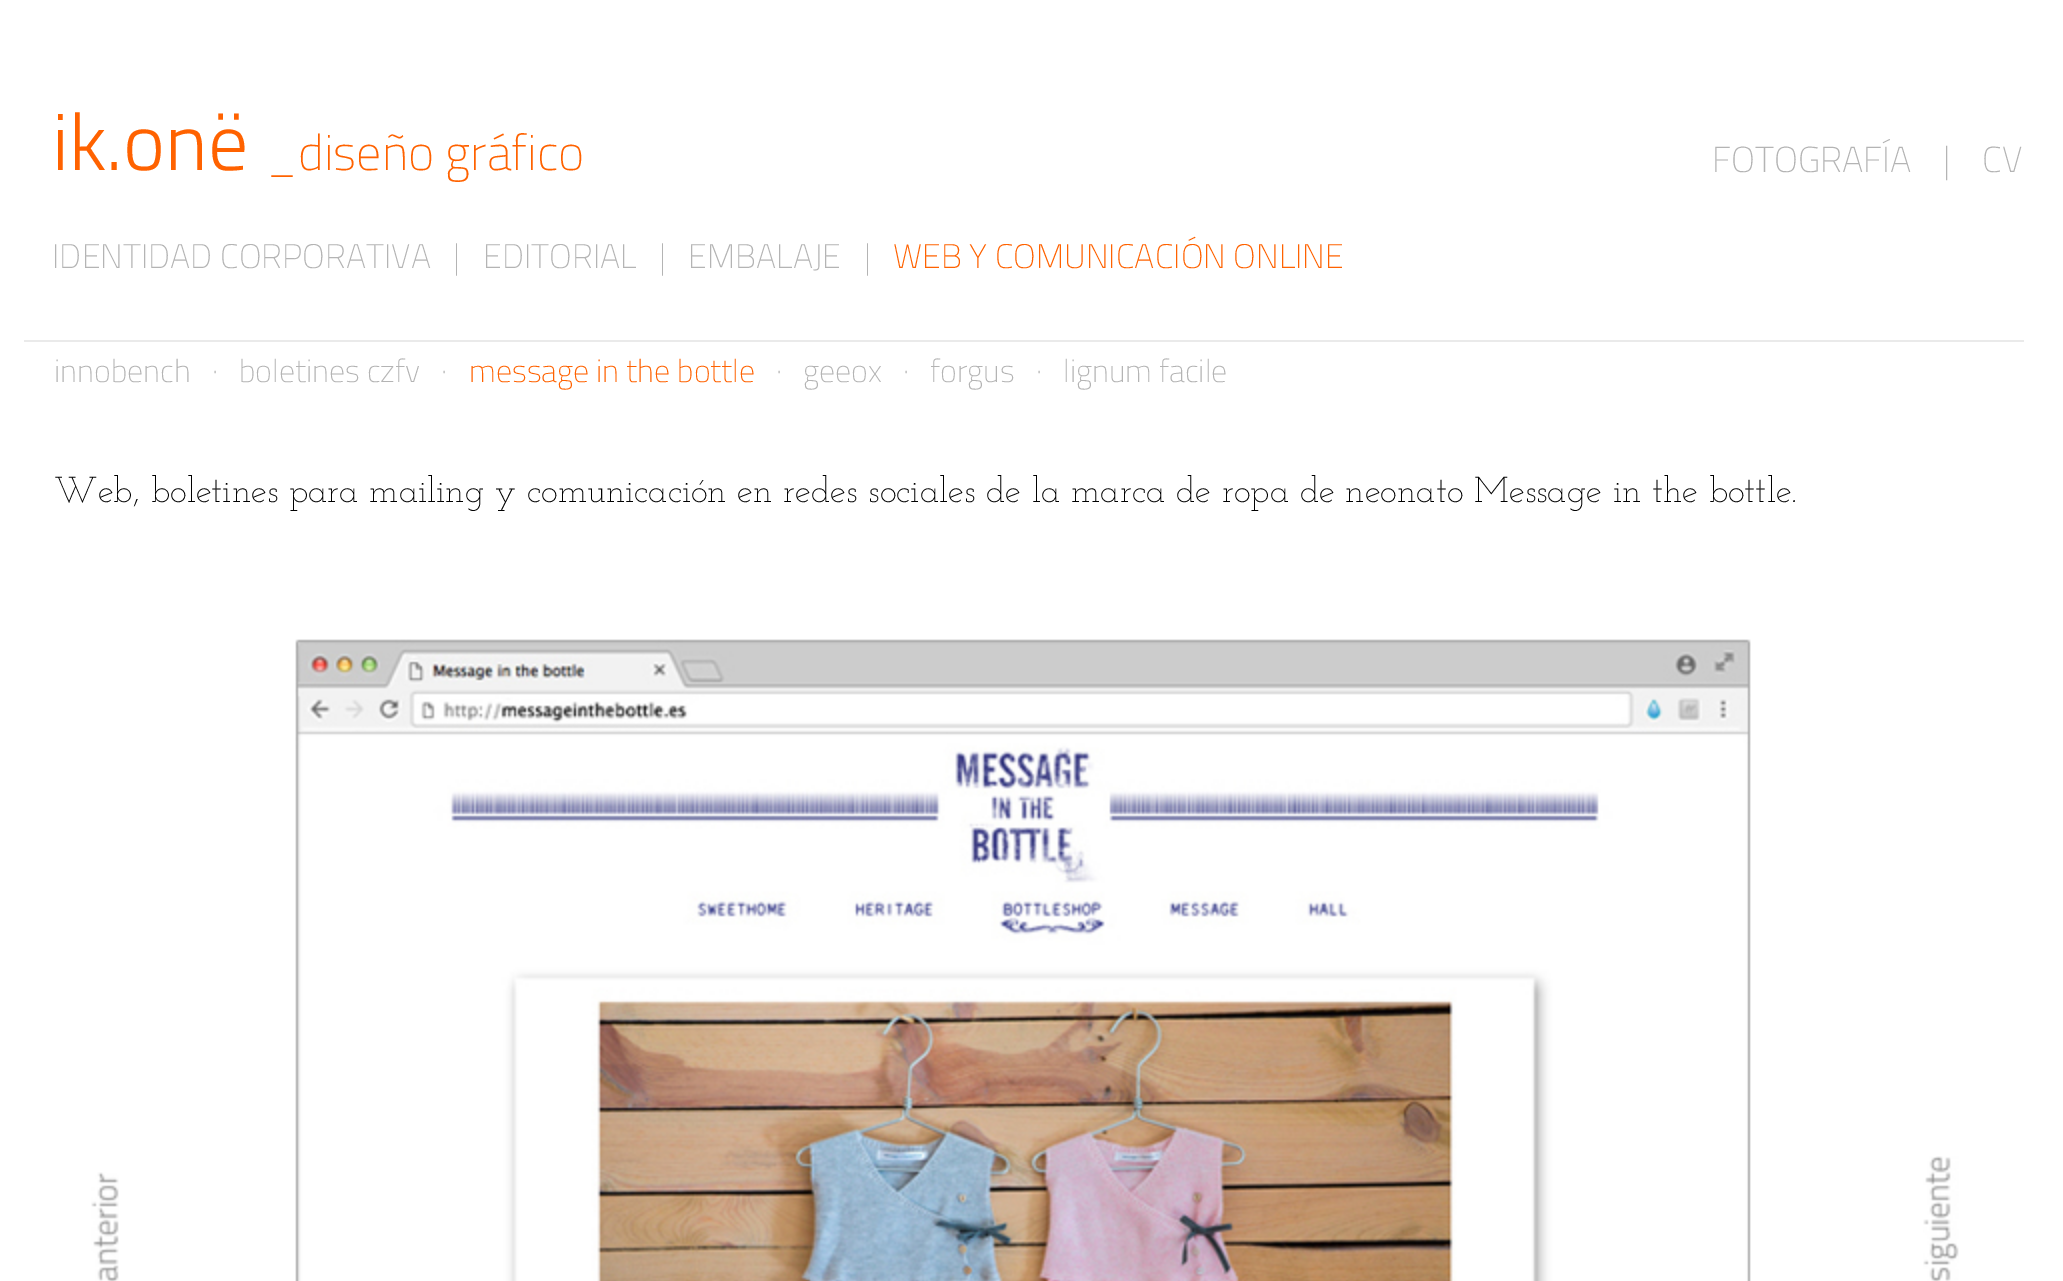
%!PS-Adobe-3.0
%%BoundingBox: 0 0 2063 1281
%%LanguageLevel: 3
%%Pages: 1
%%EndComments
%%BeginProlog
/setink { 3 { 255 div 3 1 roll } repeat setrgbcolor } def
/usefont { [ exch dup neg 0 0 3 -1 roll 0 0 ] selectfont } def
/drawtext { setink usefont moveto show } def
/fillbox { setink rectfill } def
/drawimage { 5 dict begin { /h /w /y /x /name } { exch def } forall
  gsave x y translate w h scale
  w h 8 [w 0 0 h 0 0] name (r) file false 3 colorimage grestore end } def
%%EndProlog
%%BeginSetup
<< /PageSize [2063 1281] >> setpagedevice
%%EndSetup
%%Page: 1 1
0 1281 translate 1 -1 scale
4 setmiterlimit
0 0 2063 1281 255 255 255 fillbox
(ik.onë) 52 170 /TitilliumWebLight-Light 80 255 98 0 drawtext
(_diseño gráfico) 266 170 /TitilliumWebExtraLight-ExtraLight 50 255 98 0 drawtext
(FOTOGRAFÍA) 1712 172 /TitilliumWebExtraLight-ExtraLight 36 180 180 180 drawtext
(|) 1943 172 /TitilliumWebExtraLight-ExtraLight 36 180 180 180 drawtext
(CV) 1982 172 /TitilliumWebExtraLight-ExtraLight 36 180 180 180 drawtext
(IDENTIDAD CORPORATIVA) 52 268 /TitilliumWebExtraLight-ExtraLight 34 180 180 180 drawtext
(|) 453 268 /TitilliumWebExtraLight-ExtraLight 34 180 180 180 drawtext
(EDITORIAL) 483 268 /TitilliumWebExtraLight-ExtraLight 34 180 180 180 drawtext
(|) 659 268 /TitilliumWebExtraLight-ExtraLight 34 180 180 180 drawtext
(EMBALAJE) 688 268 /TitilliumWebExtraLight-ExtraLight 34 180 180 180 drawtext
(|) 864 268 /TitilliumWebExtraLight-ExtraLight 34 180 180 180 drawtext
(WEB Y COMUNICACIÓN ONLINE) 893 268 /TitilliumWebExtraLight-ExtraLight 34 255 98 0 drawtext
24 340 2000 2 234 234 234 fillbox
(innobench) 54 382 /TitilliumWebExtraLight-ExtraLight 32 180 180 180 drawtext
(·) 212 382 /TitilliumWebExtraLight-ExtraLight 32 180 180 180 drawtext
(boletines czfv) 239 382 /TitilliumWebExtraLight-ExtraLight 32 180 180 180 drawtext
(·) 441 382 /TitilliumWebExtraLight-ExtraLight 32 180 180 180 drawtext
(message in the bottle) 469 382 /TitilliumWebExtraLight-ExtraLight 32 255 98 0 drawtext
(·) 776 382 /TitilliumWebExtraLight-ExtraLight 32 180 180 180 drawtext
(geeox) 803 382 /TitilliumWebExtraLight-ExtraLight 32 180 180 180 drawtext
(·) 903 382 /TitilliumWebExtraLight-ExtraLight 32 180 180 180 drawtext
(forgus) 930 382 /TitilliumWebExtraLight-ExtraLight 32 180 180 180 drawtext
(·) 1036 382 /TitilliumWebExtraLight-ExtraLight 32 180 180 180 drawtext
(lignum facile) 1063 382 /TitilliumWebExtraLight-ExtraLight 32 180 180 180 drawtext
(Web, boletines para mailing y comunicación en redes sociales de la marca de ropa de neonato Message in the bottle.) 54 502 /JosefinSlab-Light 36 0 0 0 drawtext
(assets/img1.rgb) 91 1172 28 109 drawimage
(assets/img2.rgb) 295 639 1456 642 drawimage
(assets/img3.rgb) 1923 1156 36 125 drawimage
showpage
%%EOF
